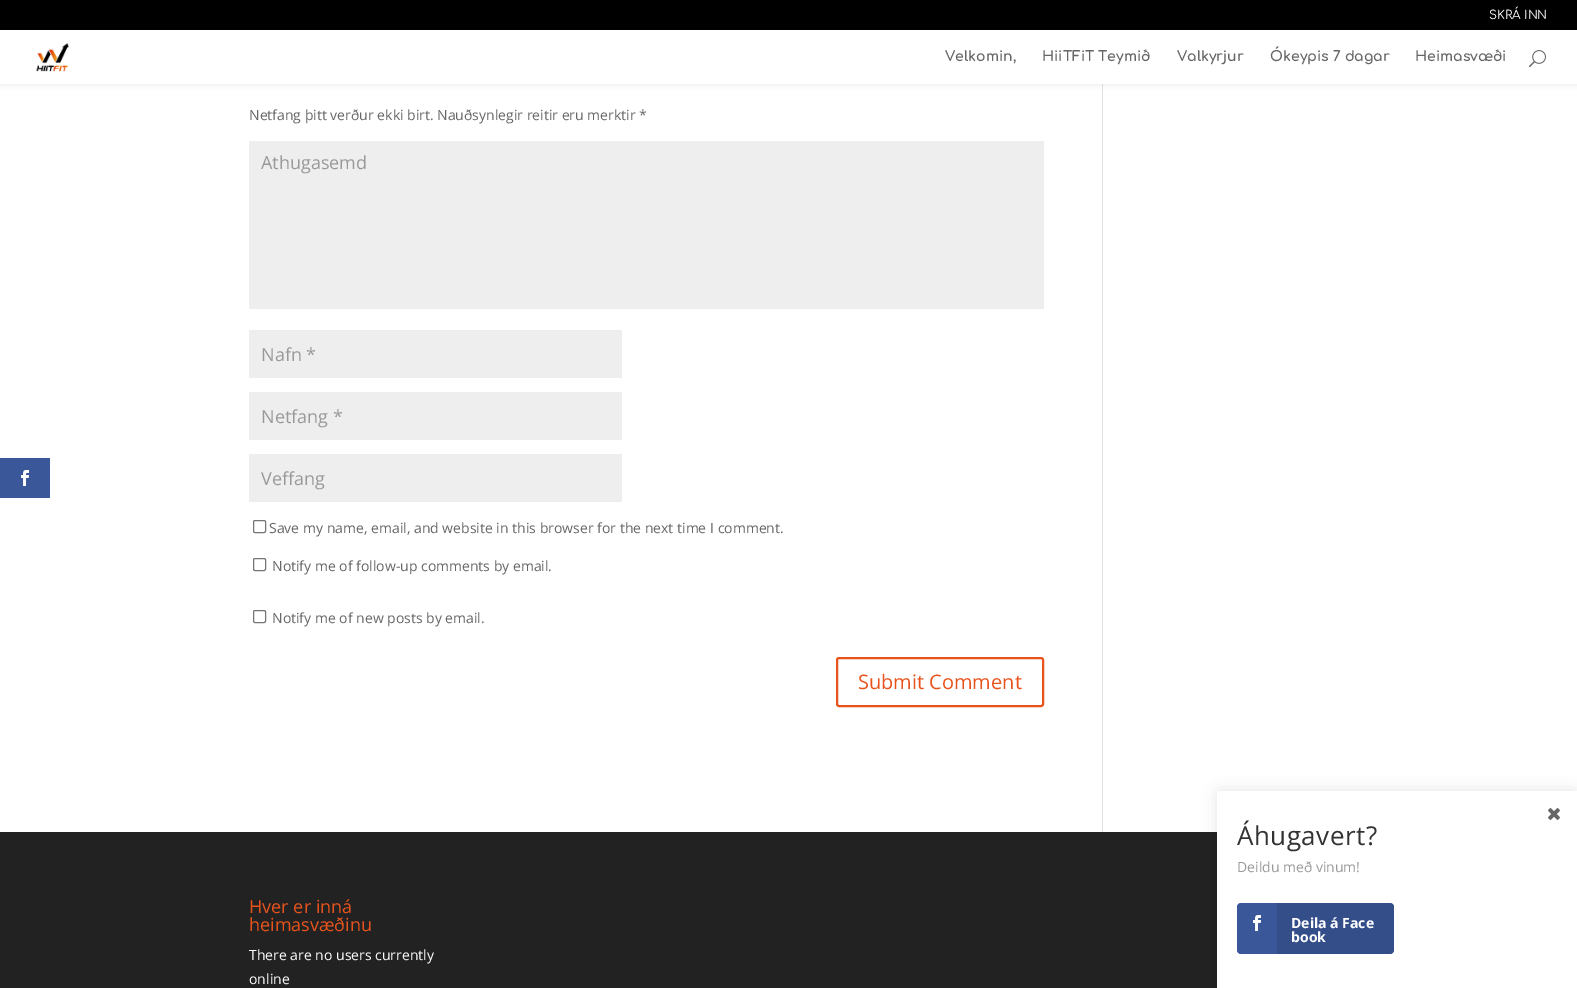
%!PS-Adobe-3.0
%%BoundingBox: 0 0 1577 988
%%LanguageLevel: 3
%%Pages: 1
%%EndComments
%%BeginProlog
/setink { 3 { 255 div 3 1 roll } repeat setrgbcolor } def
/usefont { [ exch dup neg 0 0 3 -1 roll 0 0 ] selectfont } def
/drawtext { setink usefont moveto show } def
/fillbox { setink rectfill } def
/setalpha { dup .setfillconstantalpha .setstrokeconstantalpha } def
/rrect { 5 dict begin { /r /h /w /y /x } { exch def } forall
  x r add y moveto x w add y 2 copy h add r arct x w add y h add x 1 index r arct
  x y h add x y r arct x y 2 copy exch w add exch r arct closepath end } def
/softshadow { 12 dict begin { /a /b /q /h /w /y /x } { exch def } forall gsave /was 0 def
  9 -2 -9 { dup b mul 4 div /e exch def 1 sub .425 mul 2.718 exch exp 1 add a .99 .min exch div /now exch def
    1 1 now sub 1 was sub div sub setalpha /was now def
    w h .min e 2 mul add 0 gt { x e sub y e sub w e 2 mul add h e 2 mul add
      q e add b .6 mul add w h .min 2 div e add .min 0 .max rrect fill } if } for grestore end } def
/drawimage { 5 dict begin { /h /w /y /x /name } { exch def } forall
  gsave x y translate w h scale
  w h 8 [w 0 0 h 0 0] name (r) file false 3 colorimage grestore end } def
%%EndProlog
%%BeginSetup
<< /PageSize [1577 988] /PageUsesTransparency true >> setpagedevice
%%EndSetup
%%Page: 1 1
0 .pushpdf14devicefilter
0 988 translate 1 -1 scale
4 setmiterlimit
0 0 1577 988 255 255 255 fillbox
0 458 50 40 58 87 154 fillbox
(assets/img1.rgb) 21 470 8 16 drawimage
1102 84 1 748 226 226 226 fillbox
0 0 0 setink
0 30 1577 54 0 3.5 0.1 softshadow
0 0 1577 30 0 0 0 fillbox
(SKRÁ INN) 1489 19 /Comfortaa-Regular 12 255 255 255 drawtext
0 30 1577 54 255 255 255 fillbox
(assets/img2.rgb) 36 43 33 29 drawimage
(Velkomin,) 945 61 /Comfortaa-Bold 14 102 102 102 drawtext
(HiiTFiT Teymið) 1042 61 /Comfortaa-Bold 14 102 102 102 drawtext
(Valkyrjur) 1177 61 /Comfortaa-Bold 14 102 102 102 drawtext
(Ókeypis 7 dagar) 1270 61 /Comfortaa-Bold 14 102 102 102 drawtext
(Heimasvæði) 1415 61 /Comfortaa-Bold 14 102 102 102 drawtext
(assets/img3.rgb) 1529 50 17 18 drawimage
(Netfang þitt verður ekki birt. Nauðsynlegir reitir eru merktir *) 249 120 /OpenSans-Regular 14 102 102 102 drawtext
249 141 795 168 238 238 238 fillbox
(Athugasemd) 261 169 /OpenSans-Regular 18 153 153 153 drawtext
249 330 373 48 238 238 238 fillbox
(Nafn *) 261 361 /OpenSans-Regular 18 153 153 153 drawtext
249 392 373 48 238 238 238 fillbox
(Netfang *) 261 423 /OpenSans-Regular 18 153 153 153 drawtext
249 454 373 48 238 238 238 fillbox
(Veffang) 261 485 /OpenSans-Regular 18 153 153 153 drawtext
118 118 118 setink
253.5 520.5 12 12 1.5 rrect stroke
(Save my name, email, and website in this browser for the next time I comment.) 269 533 /OpenSans-Regular 14 102 102 102 drawtext
118 118 118 setink
253.5 558.5 12 12 1.5 rrect stroke
(Notify me of follow-up comments by email.) 272 571 /OpenSans-Regular 14 102 102 102 drawtext
118 118 118 setink
253.5 610.5 12 12 1.5 rrect stroke
(Notify me of new posts by email.) 272 623 /OpenSans-Regular 14 102 102 102 drawtext
232 83 28 setink
2 setlinewidth
837 658 206 48 2 rrect stroke
(Submit Comment) 858 689 /OpenSans-Regular 20 232 83 28 drawtext
0 832 1217 156 34 34 34 fillbox
(Hver er inná) 249 913 /OpenSans-Regular 18 232 83 28 drawtext
(heimasvæðinu) 249 931 /OpenSans-Regular 18 232 83 28 drawtext
(There are no users currently) 249 960 /OpenSans-Regular 14 255 255 255 drawtext
(online) 249 984 /OpenSans-Regular 14 255 255 255 drawtext
0 0 0 setink
1217 791 360 197 3 7.5 0.1 softshadow
255 255 255 setink
1220 791 moveto 1577 791 lineto 1577 988 lineto 1217 988 lineto 1217 794 lineto 1217 792.5 1218.5 791 1220 791 curveto closepath fill
(assets/img4.rgb) 1548 808 12 12 drawimage
/OpenSans-Regular 26 usefont
51 51 51 setink
1237 845 moveto 0.5 0 (Áhugavert?) ashow
(Deildu með vinum!) 1237 872 /OpenSans-Regular 14 153 153 153 drawtext
58 87 154 setink
1237 903 157 51 4 rrect fill
(assets/img1.rgb) 1253 915 8 16 drawimage
0.1 setalpha
0 0 0 setink
1277 903 moveto 1390 903 lineto 1392 903 1394 905 1394 907 curveto 1394 950 lineto 1394 952 1392 954 1390 954 curveto 1277 954 lineto closepath fill
1 setalpha
(Deila á Face) 1291 928 /OpenSans-Bold 14 255 255 255 drawtext
(book) 1291 942 /OpenSans-Bold 14 255 255 255 drawtext
.poppdf14devicefilter showpage
%%EOF
